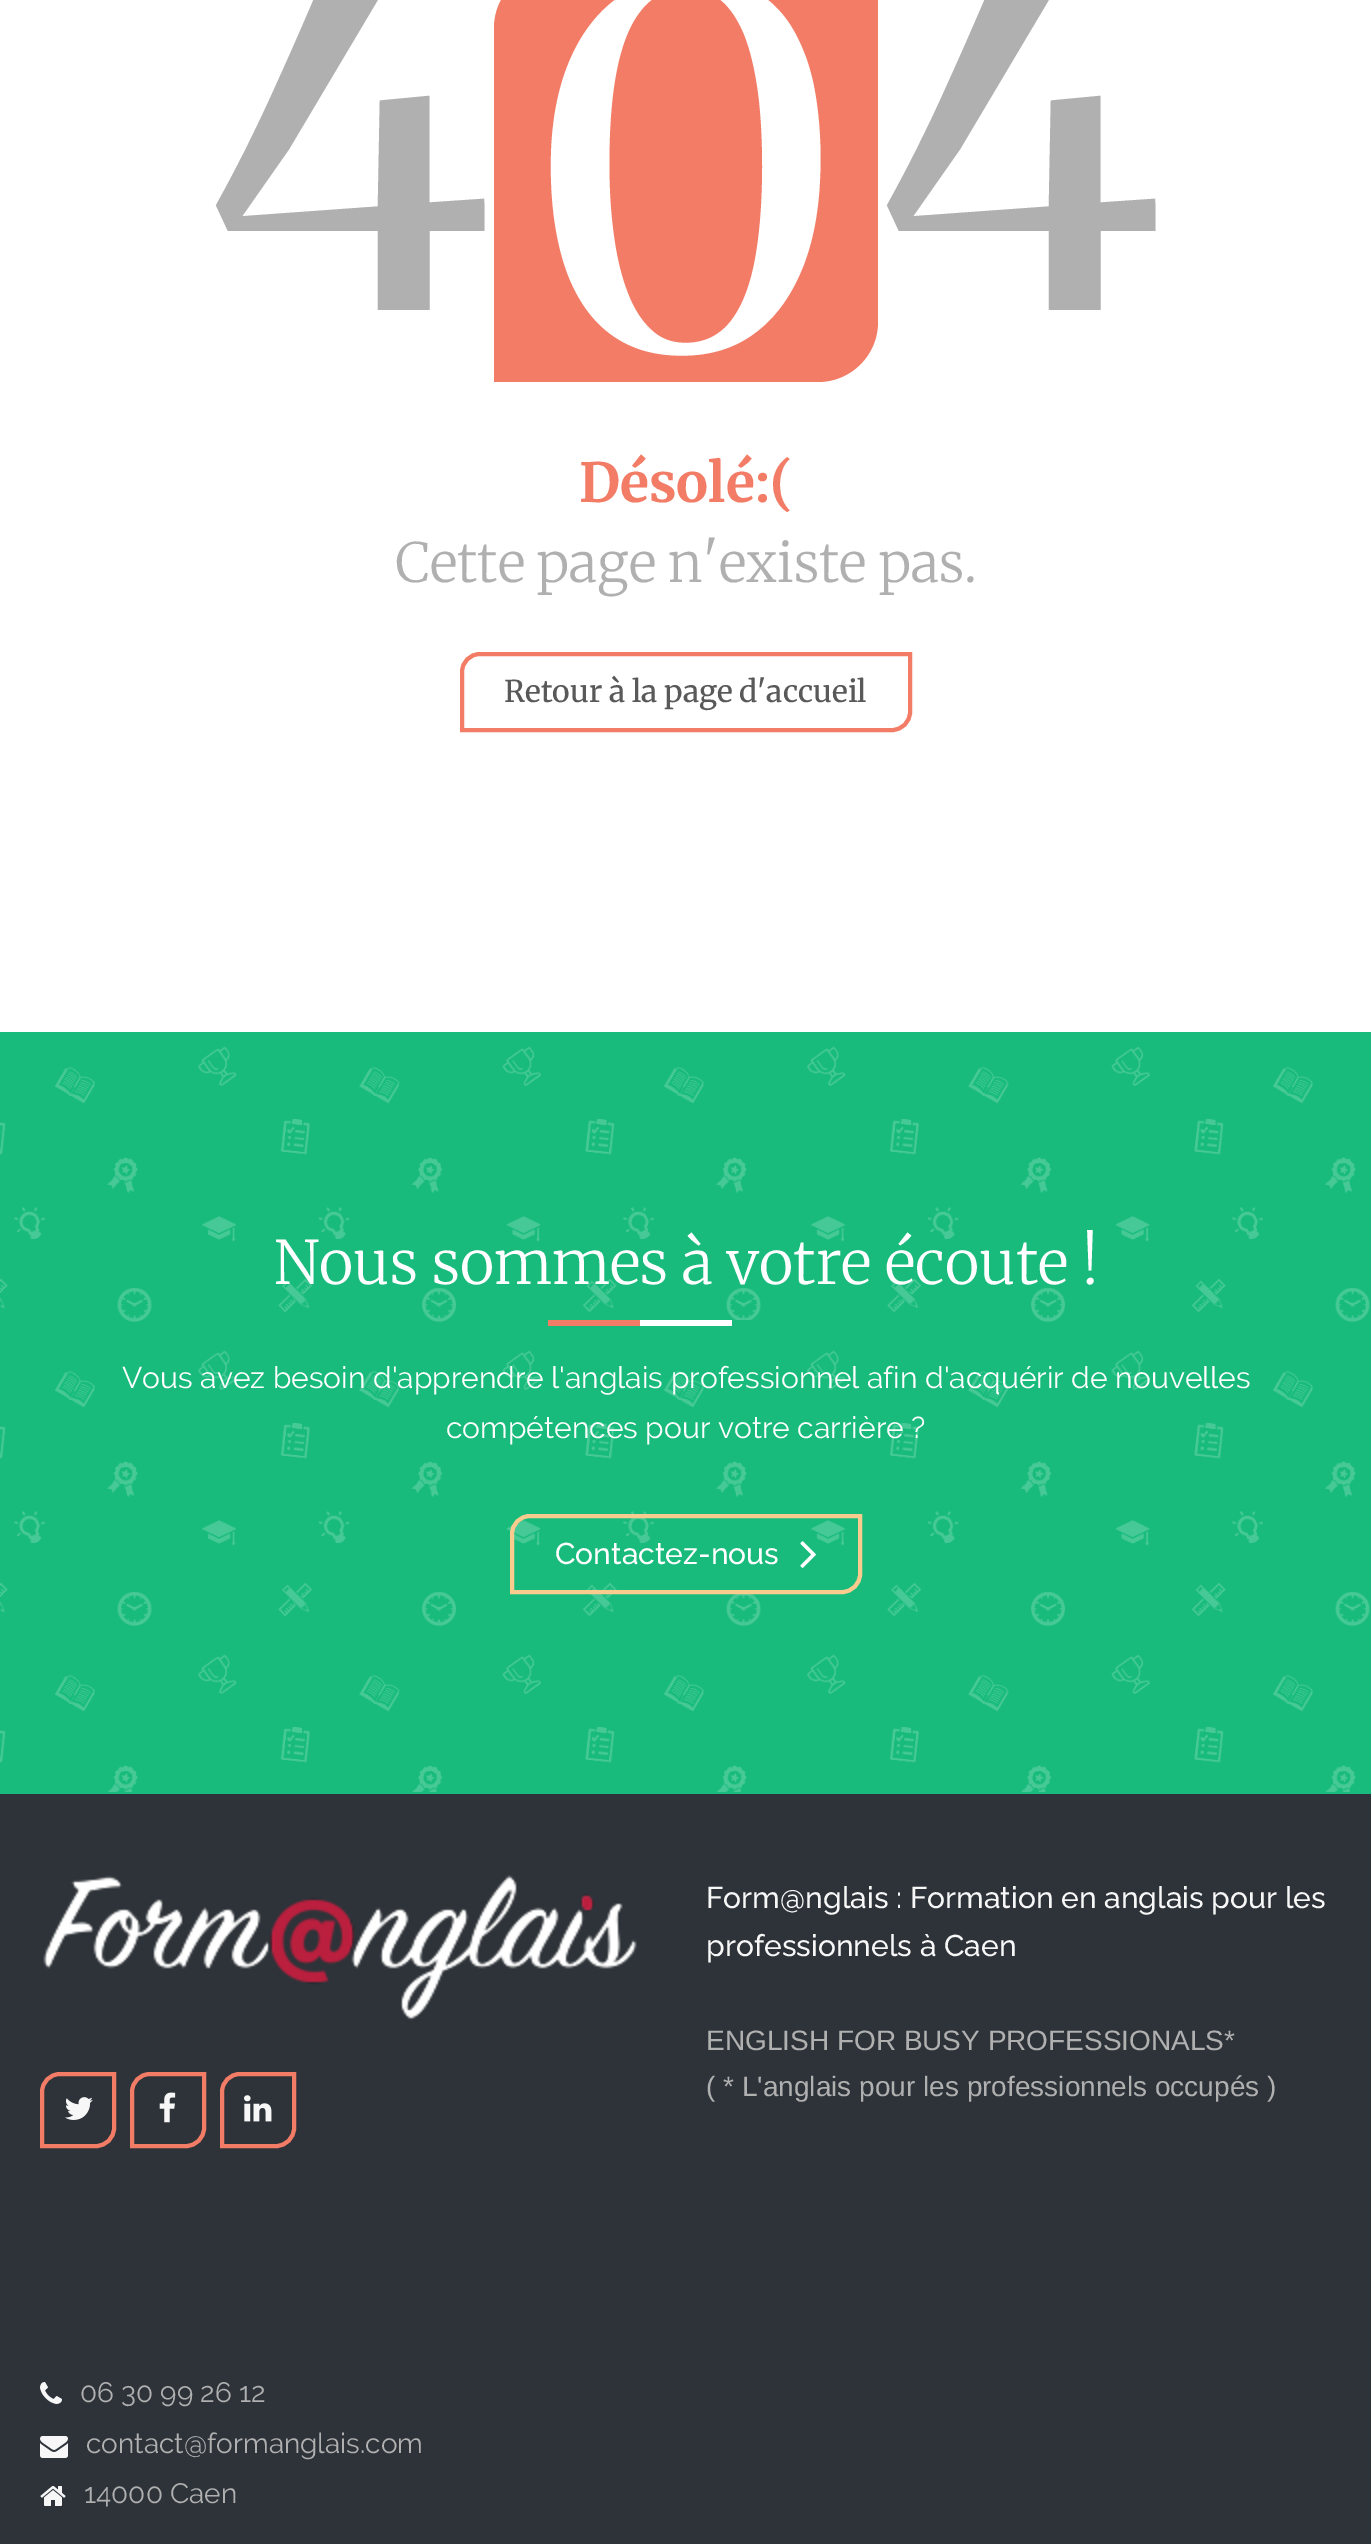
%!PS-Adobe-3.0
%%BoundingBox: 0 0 1371 2544
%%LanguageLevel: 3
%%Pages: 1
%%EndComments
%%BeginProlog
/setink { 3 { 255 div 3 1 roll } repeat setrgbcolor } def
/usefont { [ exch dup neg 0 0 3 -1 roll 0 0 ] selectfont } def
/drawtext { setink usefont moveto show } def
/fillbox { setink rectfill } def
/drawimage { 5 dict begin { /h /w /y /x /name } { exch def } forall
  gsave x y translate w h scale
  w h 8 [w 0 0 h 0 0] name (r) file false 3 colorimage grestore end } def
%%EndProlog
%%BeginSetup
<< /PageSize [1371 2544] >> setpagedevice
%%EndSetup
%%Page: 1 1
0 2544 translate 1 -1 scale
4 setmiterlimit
0 0 1371 2544 255 255 255 fillbox
(4) 208 310 /Merriweather-Regular 500 176 176 176 drawtext
242 124 102 setink
554 -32 moveto 878 -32 lineto 878 322 lineto 878 355 851 382 818 382 curveto 494 382 lineto 494 28 lineto 494 -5 521 -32 554 -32 curveto closepath fill
(0) 533 351 /Merriweather-Regular 500 255 255 255 drawtext
(4) 879 310 /Merriweather-Regular 500 176 176 176 drawtext
(Désolé:\() 579 502 /Merriweather-Bold 54 242 124 102 drawtext
(Cette page n'existe pas.) 395 582 /Merriweather-Light 54 176 176 176 drawtext
242 124 102 setink
4 setlinewidth
480 654 moveto 910 654 lineto 910 712 lineto 910 722 902 730 892 730 curveto 462 730 lineto 462 672 lineto 462 662 470 654 480 654 curveto closepath stroke
/Merriweather-Medium 30 usefont
89 89 89 setink
504 702 moveto -0.5 0 32 (Retour à la page d'accueil) widthshow
0 1032 1371 762 24 187 124 fillbox
(assets/img1.rgb) 0 1046 1370 746 drawimage
(Nous sommes à votre écoute !) 274 1284 /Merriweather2-Light 60 255 255 255 drawtext
640 1320 92 6 255 255 255 fillbox
732 1320 19 2 24 187 124 fillbox
548 1320 92 6 242 124 102 fillbox
(Vous avez besoin d'apprendre l'anglais professionnel afin d'acquérir de nouvelles) 122 1388 /Raleway-Regular 30 255 255 255 drawtext
(compétences pour votre carrière ?) 446 1438 /Raleway-Regular 30 255 255 255 drawtext
249 203 143 setink
530 1516 moveto 860 1516 lineto 860 1574 lineto 860 1584 852 1592 842 1592 curveto 512 1592 lineto 512 1534 lineto 512 1524 520 1516 530 1516 curveto closepath stroke
(Contactez-nous) 555 1564 /Raleway-Medium 30 255 255 255 drawtext
(assets/img2.rgb) 800 1541 16 27 drawimage
0 1794 1371 750 45 51 57 fillbox
(assets/img3.rgb) 43 1875 594 146 drawimage
242 124 102 setink
60 2074 moveto 114 2074 lineto 114 2128 lineto 114 2138 106 2146 96 2146 curveto 42 2146 lineto 42 2092 lineto 42 2082 50 2074 60 2074 curveto closepath stroke
(assets/img4.rgb) 65 2097 28 23 drawimage
150 2074 moveto 204 2074 lineto 204 2128 lineto 204 2138 196 2146 186 2146 curveto 132 2146 lineto 132 2092 lineto 132 2082 140 2074 150 2074 curveto closepath stroke
(assets/img5.rgb) 159 2092 17 31 drawimage
240 2074 moveto 294 2074 lineto 294 2128 lineto 294 2138 286 2146 276 2146 curveto 222 2146 lineto 222 2092 lineto 222 2082 230 2074 240 2074 curveto closepath stroke
(assets/img6.rgb) 244 2095 28 27 drawimage
(Form@nglais : Formation en anglais pour les) 706 1908 /Raleway-Medium 30 247 247 247 drawtext
(professionnels à Caen) 706 1956 /Raleway-Medium 30 247 247 247 drawtext
(ENGLISH FOR BUSY PROFESSIONALS*) 706 2050 /LiberationSans-Regular 28 176 176 176 drawtext
(\( * L'anglais pour les professionnels occupés \)) 706 2096 /LiberationSans-Regular 28 176 176 176 drawtext
(assets/img7.rgb) 40 2382 22 22 drawimage
(06 30 99 26 12) 80 2402 /Raleway-Regular 28 176 176 176 drawtext
(assets/img8.rgb) 40 2436 28 22 drawimage
(contact@formanglais.com) 86 2453 /Raleway-Regular 28 176 176 176 drawtext
(assets/img9.rgb) 40 2486 26 20 drawimage
(14000 Caen) 84 2503 /Raleway-Regular 28 176 176 176 drawtext
showpage
%%EOF
